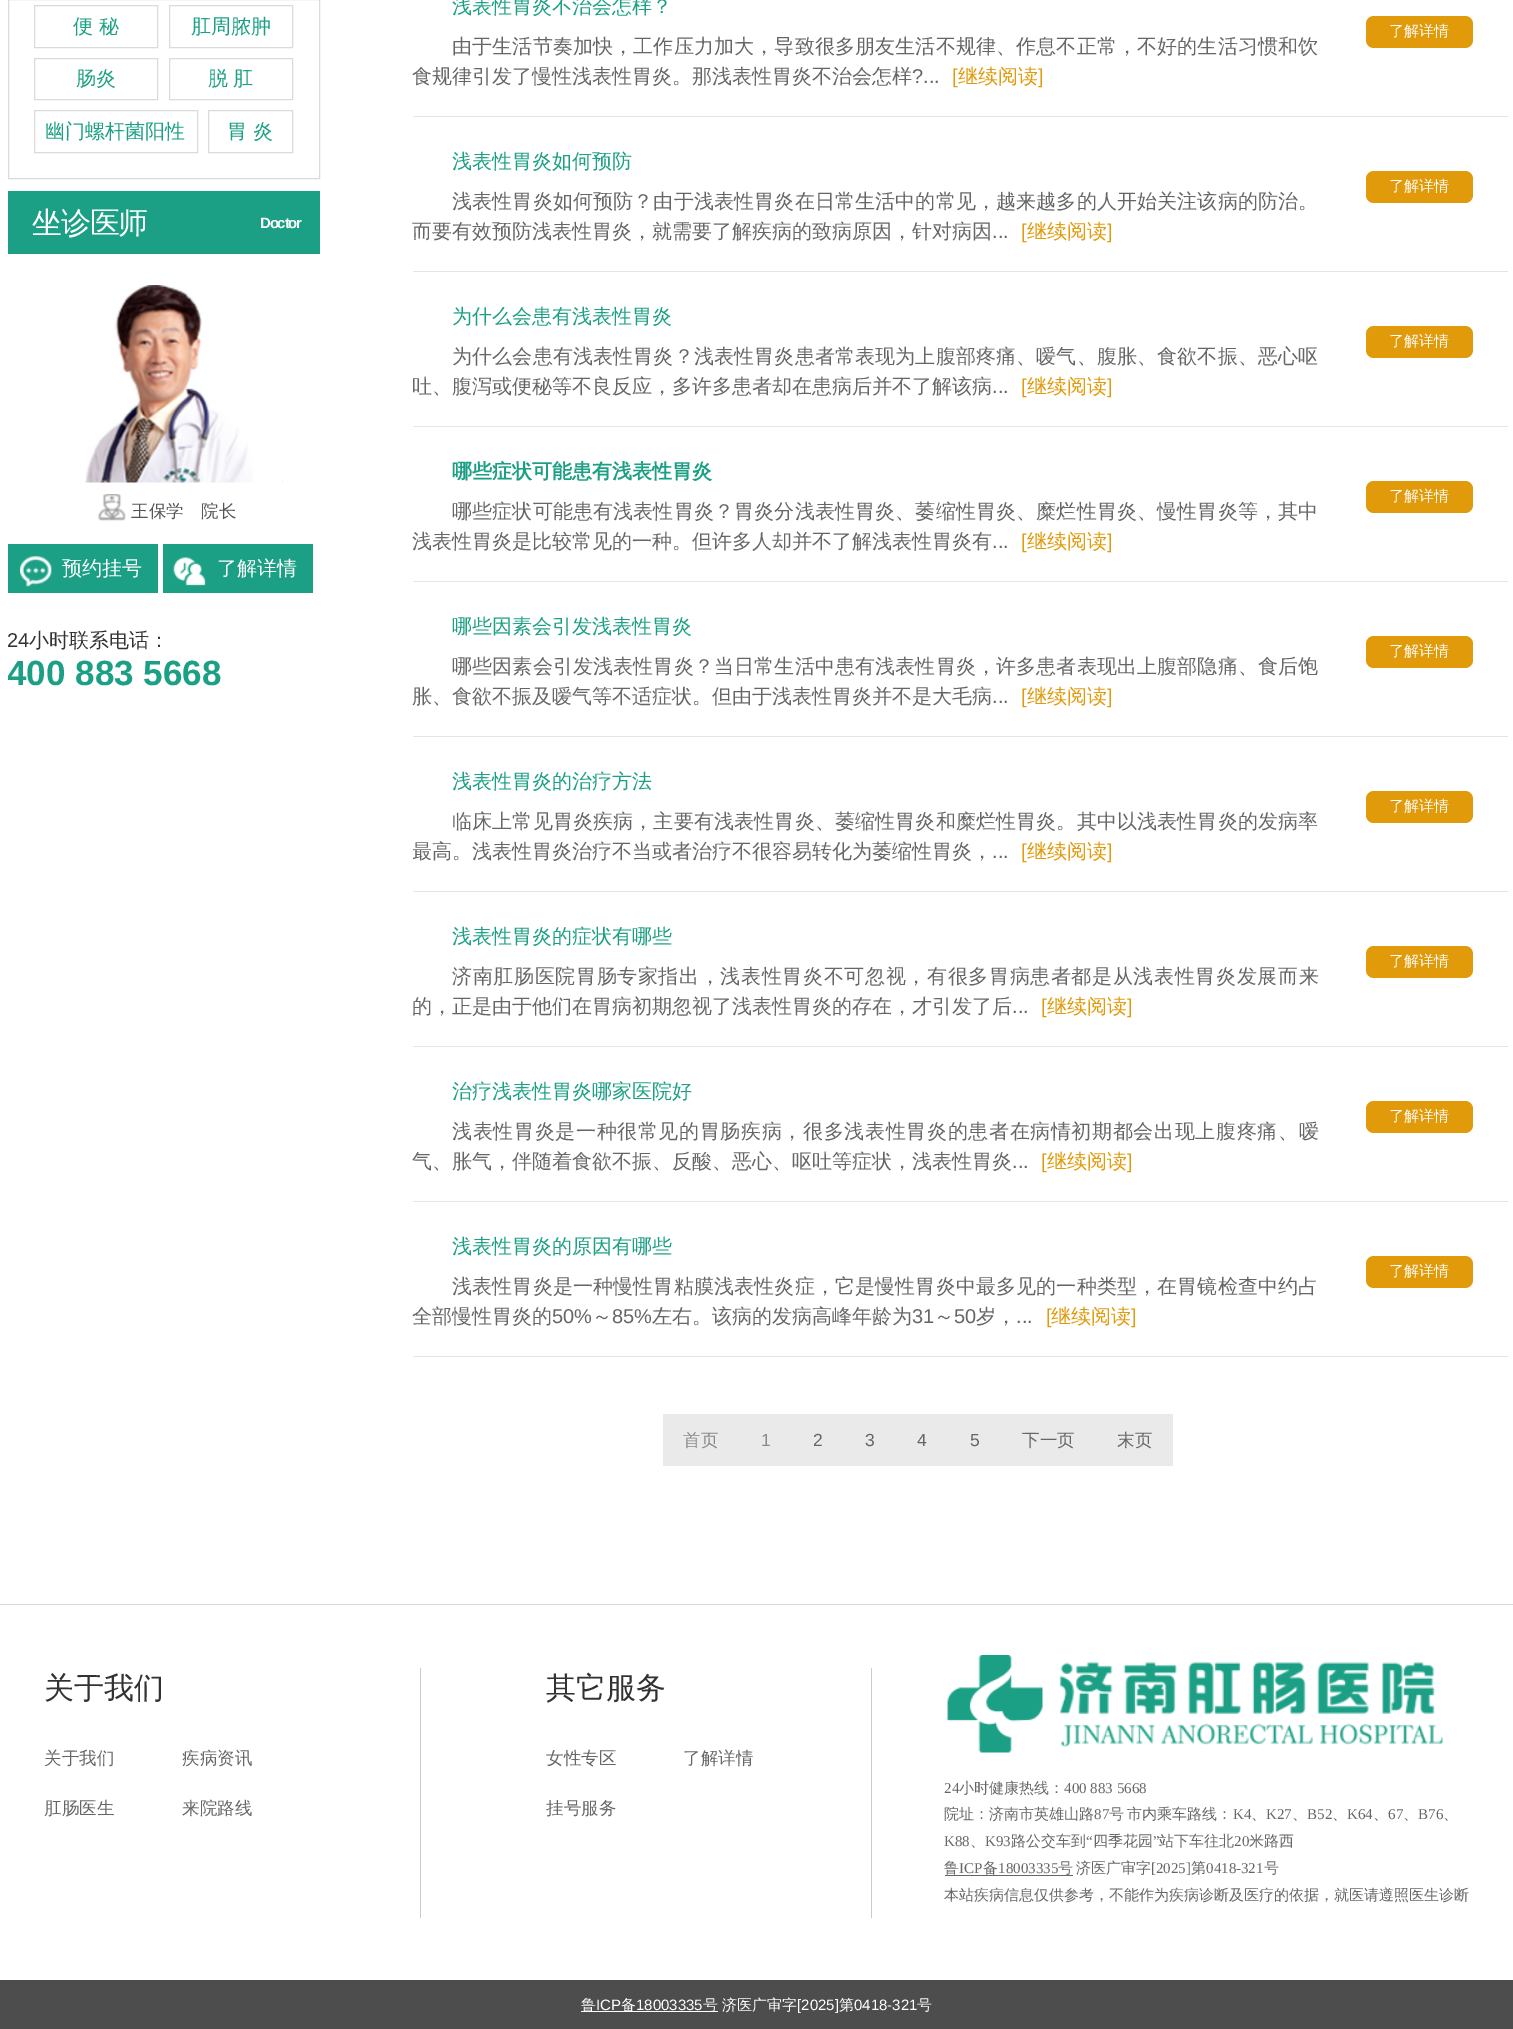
%!PS-Adobe-3.0
%%BoundingBox: 0 0 1513 2029
%%LanguageLevel: 3
%%Pages: 1
%%EndComments
%%BeginProlog
/setink { 3 { 255 div 3 1 roll } repeat setrgbcolor } def
/usefont { [ exch dup neg 0 0 3 -1 roll 0 0 ] selectfont } def
/drawtext { setink usefont moveto show } def
/fillbox { setink rectfill } def
/rrect { 5 dict begin { /r /h /w /y /x } { exch def } forall
  x r add y moveto x w add y 2 copy h add r arct x w add y h add x 1 index r arct
  x y h add x y r arct x y 2 copy exch w add exch r arct closepath end } def
/drawimage { 5 dict begin { /h /w /y /x /name } { exch def } forall
  gsave x y translate w h scale
  w h 8 [w 0 0 h 0 0] name (r) file false 3 colorimage grestore end } def
%%EndProlog
%%BeginSetup
<< /PageSize [1513 2029] >> setpagedevice
%%EndSetup
%%Page: 1 1
0 2029 translate 1 -1 scale
4 setmiterlimit
0 0 1513 2029 255 255 255 fillbox
219 219 219 setink
8.5 -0.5 311 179 rectstroke
34.5 5.5 123 42 rectstroke
(便 秘) 73 33 /WenQuanYiZenHei-Medium 20 28 160 133 drawtext
219 219 219 setink
169.5 5.5 123 42 rectstroke
(肛周脓肿) 191 33 /WenQuanYiZenHei-Medium 20 28 160 133 drawtext
219 219 219 setink
34.5 58.5 123 41 rectstroke
(肠炎) 76 85 /WenQuanYiZenHei-Medium 20 28 160 133 drawtext
219 219 219 setink
169.5 58.5 123 41 rectstroke
(脱) 208 85 /WenQuanYiZenHei-Medium 20 28 160 133 drawtext
(肛) 233 85 /WenQuanYiZenHei-Medium 20 28 160 133 drawtext
219 219 219 setink
34.5 110.5 163 42 rectstroke
(幽门螺杆菌阳性) 45 138 /WenQuanYiZenHei-Medium 20 28 160 133 drawtext
219 219 219 setink
208.5 110.5 84 42 rectstroke
(胃 炎) 227 138 /WenQuanYiZenHei-Medium 20 28 160 133 drawtext
8 191 312 63 28 160 133 fillbox
/WenQuanYiZenHei-Medium 30 usefont
255 255 255 setink
32 233 moveto -1.25 0 (坐诊医师) ashow
/LiberationSans-Bold 15 usefont
260 228 moveto -1.25 0 (Doctor) ashow
(assets/img1.rgb) 282 480 1 3 drawimage
(assets/img2.rgb) 85 285 168 198 drawimage
(assets/img3.rgb) 98 494 28 27 drawimage
(王保学　院长) 131 517 /WenQuanYiZenHei-Medium 17.5 85 85 85 drawtext
8 544 150 49 28 160 133 fillbox
(assets/img4.rgb) 20 556 32 31 drawimage
(预约挂号) 62 575 /WenQuanYiZenHei-Medium 20 255 255 255 drawtext
163 544 150 49 28 160 133 fillbox
(assets/img5.rgb) 173 557 33 29 drawimage
(了解详情) 217 575 /WenQuanYiZenHei-Medium 20 255 255 255 drawtext
(24) 7 647 /LiberationSans-Regular 20 50 50 50 drawtext
(小时联系电话：) 29 647 /WenQuanYiZenHei-Medium 20 50 50 50 drawtext
gsave
8 544 312 150 rectclip
(400 883 5668) 7 685 /LiberationSans-Bold 35 28 160 133 drawtext
grestore
413 116 1095 1 229 229 229 fillbox
(浅表性胃炎不治会怎样？) 452 13 /WenQuanYiZenHei-Medium 20 28 160 133 drawtext
102 102 102 setink
452 53 moveto 0.15 0 (由于生活节奏加快，工作压力加大，导致很多朋友生活不规律、作息不正常，不好的生活习惯和饮) ashow
(食规律引发了慢性浅表性胃炎。那浅表性胃炎不治会怎样) 412 83 /WenQuanYiZenHei-Medium 20 102 102 102 drawtext
(?...) 912 83 /LiberationSans-Regular 20 102 102 102 drawtext
([) 952 83 /LiberationSans-Regular 20 225 154 10 drawtext
(继续阅读) 958 83 /WenQuanYiZenHei-Medium 20 225 154 10 drawtext
(]) 1038 83 /LiberationSans-Regular 20 225 154 10 drawtext
1366 16 107 32 8 rrect fill
(了解详情) 1389 36 /WenQuanYiZenHei-Medium 15 255 255 255 drawtext
413 271 1095 1 229 229 229 fillbox
(浅表性胃炎如何预防) 452 168 /WenQuanYiZenHei-Medium 20 28 160 133 drawtext
102 102 102 setink
452 208 moveto 0.15 0 (浅表性胃炎如何预防？由于浅表性胃炎在日常生活中的常见，越来越多的人开始关注该病的防治。) ashow
(而要有效预防浅表性胃炎，就需要了解疾病的致病原因，针对病因) 412 238 /WenQuanYiZenHei-Medium 20 102 102 102 drawtext
(...) 992 238 /LiberationSans-Regular 20 102 102 102 drawtext
([) 1021 238 /LiberationSans-Regular 20 225 154 10 drawtext
(继续阅读) 1027 238 /WenQuanYiZenHei-Medium 20 225 154 10 drawtext
(]) 1107 238 /LiberationSans-Regular 20 225 154 10 drawtext
1366 171 107 32 8 rrect fill
(了解详情) 1389 191 /WenQuanYiZenHei-Medium 15 255 255 255 drawtext
413 426 1095 1 229 229 229 fillbox
(为什么会患有浅表性胃炎) 452 323 /WenQuanYiZenHei-Medium 20 28 160 133 drawtext
102 102 102 setink
452 363 moveto 0.15 0 (为什么会患有浅表性胃炎？浅表性胃炎患者常表现为上腹部疼痛、嗳气、腹胀、食欲不振、恶心呕) ashow
gsave
413 273 1095 153 rectclip
(吐、腹泻或便秘等不良反应，多许多患者却在患病后并不了解该病) 412 393 /WenQuanYiZenHei-Medium 20 102 102 102 drawtext
grestore
(...) 992 393 /LiberationSans-Regular 20 102 102 102 drawtext
([) 1021 393 /LiberationSans-Regular 20 225 154 10 drawtext
(继续阅读) 1027 393 /WenQuanYiZenHei-Medium 20 225 154 10 drawtext
(]) 1107 393 /LiberationSans-Regular 20 225 154 10 drawtext
1366 326 107 32 8 rrect fill
(了解详情) 1389 346 /WenQuanYiZenHei-Medium 15 255 255 255 drawtext
413 581 1095 1 229 229 229 fillbox
(哪些症状可能患有浅表性胃炎) 452 478 /WenQuanYiZenHei-Bold 20 28 160 133 drawtext
/WenQuanYiZenHei-Medium 20 usefont
102 102 102 setink
452 518 moveto 0.15 0 (哪些症状可能患有浅表性胃炎？胃炎分浅表性胃炎、萎缩性胃炎、糜烂性胃炎、慢性胃炎等，其中) ashow
(浅表性胃炎是比较常见的一种。但许多人却并不了解浅表性胃炎有) 412 548 /WenQuanYiZenHei-Medium 20 102 102 102 drawtext
(...) 992 548 /LiberationSans-Regular 20 102 102 102 drawtext
([) 1021 548 /LiberationSans-Regular 20 225 154 10 drawtext
(继续阅读) 1027 548 /WenQuanYiZenHei-Medium 20 225 154 10 drawtext
(]) 1107 548 /LiberationSans-Regular 20 225 154 10 drawtext
1366 481 107 32 8 rrect fill
(了解详情) 1389 501 /WenQuanYiZenHei-Medium 15 255 255 255 drawtext
413 736 1095 1 229 229 229 fillbox
(哪些因素会引发浅表性胃炎) 452 633 /WenQuanYiZenHei-Medium 20 28 160 133 drawtext
102 102 102 setink
452 673 moveto 0.15 0 (哪些因素会引发浅表性胃炎？当日常生活中患有浅表性胃炎，许多患者表现出上腹部隐痛、食后饱) ashow
(胀、食欲不振及嗳气等不适症状。但由于浅表性胃炎并不是大毛病) 412 703 /WenQuanYiZenHei-Medium 20 102 102 102 drawtext
(...) 992 703 /LiberationSans-Regular 20 102 102 102 drawtext
([) 1021 703 /LiberationSans-Regular 20 225 154 10 drawtext
(继续阅读) 1027 703 /WenQuanYiZenHei-Medium 20 225 154 10 drawtext
(]) 1107 703 /LiberationSans-Regular 20 225 154 10 drawtext
1366 636 107 32 8 rrect fill
(了解详情) 1389 656 /WenQuanYiZenHei-Medium 15 255 255 255 drawtext
413 891 1095 1 229 229 229 fillbox
(浅表性胃炎的治疗方法) 452 788 /WenQuanYiZenHei-Medium 20 28 160 133 drawtext
102 102 102 setink
452 828 moveto 0.15 0 (临床上常见胃炎疾病，主要有浅表性胃炎、萎缩性胃炎和糜烂性胃炎。其中以浅表性胃炎的发病率) ashow
gsave
413 738 1095 153 rectclip
(最高。浅表性胃炎治疗不当或者治疗不很容易转化为萎缩性胃炎，) 412 858 /WenQuanYiZenHei-Medium 20 102 102 102 drawtext
grestore
(...) 992 858 /LiberationSans-Regular 20 102 102 102 drawtext
([) 1021 858 /LiberationSans-Regular 20 225 154 10 drawtext
(继续阅读) 1027 858 /WenQuanYiZenHei-Medium 20 225 154 10 drawtext
(]) 1107 858 /LiberationSans-Regular 20 225 154 10 drawtext
1366 791 107 32 8 rrect fill
(了解详情) 1389 811 /WenQuanYiZenHei-Medium 15 255 255 255 drawtext
413 1046 1095 1 229 229 229 fillbox
(浅表性胃炎的症状有哪些) 452 943 /WenQuanYiZenHei-Medium 20 28 160 133 drawtext
102 102 102 setink
452 983 moveto 0.65 0 (济南肛肠医院胃肠专家指出，浅表性胃炎不可忽视，有很多胃病患者都是从浅表性胃炎发展而来) ashow
(的，正是由于他们在胃病初期忽视了浅表性胃炎的存在，才引发了后) 412 1013 /WenQuanYiZenHei-Medium 20 102 102 102 drawtext
(...) 1012 1013 /LiberationSans-Regular 20 102 102 102 drawtext
([) 1041 1013 /LiberationSans-Regular 20 225 154 10 drawtext
(继续阅读) 1047 1013 /WenQuanYiZenHei-Medium 20 225 154 10 drawtext
(]) 1127 1013 /LiberationSans-Regular 20 225 154 10 drawtext
1366 946 107 32 8 rrect fill
(了解详情) 1389 966 /WenQuanYiZenHei-Medium 15 255 255 255 drawtext
413 1201 1095 1 229 229 229 fillbox
(治疗浅表性胃炎哪家医院好) 452 1098 /WenQuanYiZenHei-Medium 20 28 160 133 drawtext
102 102 102 setink
452 1138 moveto 0.65 0 (浅表性胃炎是一种很常见的胃肠疾病，很多浅表性胃炎的患者在病情初期都会出现上腹疼痛、嗳) ashow
(气、胀气，伴随着食欲不振、反酸、恶心、呕吐等症状，浅表性胃炎) 412 1168 /WenQuanYiZenHei-Medium 20 102 102 102 drawtext
(...) 1012 1168 /LiberationSans-Regular 20 102 102 102 drawtext
([) 1041 1168 /LiberationSans-Regular 20 225 154 10 drawtext
(继续阅读) 1047 1168 /WenQuanYiZenHei-Medium 20 225 154 10 drawtext
(]) 1127 1168 /LiberationSans-Regular 20 225 154 10 drawtext
1366 1101 107 32 8 rrect fill
(了解详情) 1389 1121 /WenQuanYiZenHei-Medium 15 255 255 255 drawtext
413 1356 1095 1 229 229 229 fillbox
(浅表性胃炎的原因有哪些) 452 1253 /WenQuanYiZenHei-Medium 20 28 160 133 drawtext
102 102 102 setink
452 1293 moveto 0.15 0 (浅表性胃炎是一种慢性胃粘膜浅表性炎症，它是慢性胃炎中最多见的一种类型，在胃镜检查中约占) ashow
(全部慢性胃炎的) 412 1323 /WenQuanYiZenHei-Medium 20 102 102 102 drawtext
(50%) 552 1323 /LiberationSans-Regular 20 102 102 102 drawtext
(～) 592 1323 /WenQuanYiZenHei-Medium 20 102 102 102 drawtext
(85%) 612 1323 /LiberationSans-Regular 20 102 102 102 drawtext
(左右。该病的发病高峰年龄为) 652 1323 /WenQuanYiZenHei-Medium 20 102 102 102 drawtext
(31) 912 1323 /LiberationSans-Regular 20 102 102 102 drawtext
(～) 934 1323 /WenQuanYiZenHei-Medium 20 102 102 102 drawtext
(50) 954 1323 /LiberationSans-Regular 20 102 102 102 drawtext
(岁，) 976 1323 /WenQuanYiZenHei-Medium 20 102 102 102 drawtext
([) 1046 1323 /LiberationSans-Regular 20 225 154 10 drawtext
(继续阅读) 1051 1323 /WenQuanYiZenHei-Medium 20 225 154 10 drawtext
(]) 1131 1323 /LiberationSans-Regular 20 225 154 10 drawtext
(...) 1016 1323 /LiberationSans-Regular 20 102 102 102 drawtext
225 154 10 setink
1366 1256 107 32 8 rrect fill
(了解详情) 1389 1276 /WenQuanYiZenHei-Medium 15 255 255 255 drawtext
663 1414 510 52 234 234 234 fillbox
(首页) 683 1446 /WenQuanYiZenHei-Medium 17.5 136 136 136 drawtext
(1) 761 1446 /LiberationSans-Regular 17.5 136 136 136 drawtext
(2) 813 1446 /LiberationSans-Regular 17.5 102 102 102 drawtext
(3) 865 1446 /LiberationSans-Regular 17.5 102 102 102 drawtext
(4) 917 1446 /LiberationSans-Regular 17.5 102 102 102 drawtext
(5) 970 1446 /LiberationSans-Regular 17.5 102 102 102 drawtext
(下一页) 1022 1446 /WenQuanYiZenHei-Medium 17.5 102 102 102 drawtext
(末页) 1117 1446 /WenQuanYiZenHei-Medium 17.5 102 102 102 drawtext
0 1604 1513 1 219 219 219 fillbox
(关于我们) 44 1698 /WenQuanYiZenHei-Medium 30 50 50 50 drawtext
(关于我们) 44 1764 /WenQuanYiZenHei-Medium 17.5 102 102 102 drawtext
(疾病资讯) 182 1764 /WenQuanYiZenHei-Medium 17.5 102 102 102 drawtext
(肛肠医生) 44 1814 /WenQuanYiZenHei-Medium 17.5 102 102 102 drawtext
(来院路线) 182 1814 /WenQuanYiZenHei-Medium 17.5 102 102 102 drawtext
871 1668 1 250 203 203 203 fillbox
420 1668 1 250 203 203 203 fillbox
(其它服务) 546 1698 /WenQuanYiZenHei-Medium 30 50 50 50 drawtext
(女性专区) 546 1764 /WenQuanYiZenHei-Medium 17.5 102 102 102 drawtext
(了解详情) 683 1764 /WenQuanYiZenHei-Medium 17.5 102 102 102 drawtext
(挂号服务) 546 1814 /WenQuanYiZenHei-Medium 17.5 102 102 102 drawtext
(assets/img6.rgb) 947 1655 496 98 drawimage
(24) 944 1793 /LiberationSerif-Regular 15 102 102 102 drawtext
(小时健康热线：) 959 1793 /WenQuanYiZenHei-Medium 15 102 102 102 drawtext
(400 883 5668) 1064 1793 /LiberationSerif-Regular 15 102 102 102 drawtext
(院址：济南市英雄山路) 944 1819 /WenQuanYiZenHei-Medium 15 102 102 102 drawtext
(87) 1094 1819 /LiberationSerif-Regular 15 102 102 102 drawtext
/WenQuanYiZenHei-Medium 15 usefont
1109 1819 moveto -1 0 32 (号 市内乘车路线：) widthshow
(K4) 1233 1819 /LiberationSerif-Regular 15 102 102 102 drawtext
(、) 1251 1819 /WenQuanYiZenHei-Medium 15 102 102 102 drawtext
(K27) 1266 1819 /LiberationSerif-Regular 15 102 102 102 drawtext
(、) 1292 1819 /WenQuanYiZenHei-Medium 15 102 102 102 drawtext
(B52) 1307 1819 /LiberationSerif-Regular 15 102 102 102 drawtext
(、) 1332 1819 /WenQuanYiZenHei-Medium 15 102 102 102 drawtext
(K64) 1347 1819 /LiberationSerif-Regular 15 102 102 102 drawtext
(、) 1373 1819 /WenQuanYiZenHei-Medium 15 102 102 102 drawtext
(67) 1388 1819 /LiberationSerif-Regular 15 102 102 102 drawtext
(、) 1403 1819 /WenQuanYiZenHei-Medium 15 102 102 102 drawtext
(B76) 1418 1819 /LiberationSerif-Regular 15 102 102 102 drawtext
(、) 1443 1819 /WenQuanYiZenHei-Medium 15 102 102 102 drawtext
(K88) 944 1846 /LiberationSerif-Regular 15 102 102 102 drawtext
(、) 970 1846 /WenQuanYiZenHei-Medium 15 102 102 102 drawtext
(K93) 985 1846 /LiberationSerif-Regular 15 102 102 102 drawtext
(路公交车到) 1011 1846 /WenQuanYiZenHei-Medium 15 102 102 102 drawtext
(“) 1086 1846 /LiberationSerif-Regular 15 102 102 102 drawtext
(四季花园) 1093 1846 /WenQuanYiZenHei-Medium 15 102 102 102 drawtext
(”) 1153 1846 /LiberationSerif-Regular 15 102 102 102 drawtext
(站下车往北) 1159 1846 /WenQuanYiZenHei-Medium 15 102 102 102 drawtext
(20) 1234 1846 /LiberationSerif-Regular 15 102 102 102 drawtext
(米路西) 1249 1846 /WenQuanYiZenHei-Medium 15 102 102 102 drawtext
(鲁) 944 1873 /WenQuanYiZenHei-Medium 15 102 102 102 drawtext
(ICP) 959 1873 /LiberationSerif-Regular 15 102 102 102 drawtext
945 1875 128 1 102 102 102 fillbox
(备) 983 1873 /WenQuanYiZenHei-Medium 15 102 102 102 drawtext
(18003335) 998 1873 /LiberationSerif-Regular 15 102 102 102 drawtext
(号) 1058 1873 /WenQuanYiZenHei-Medium 15 102 102 102 drawtext
(济医广审字) 1076 1873 /WenQuanYiZenHei-Medium 15 102 102 102 drawtext
([2025]) 1151 1873 /LiberationSerif-Regular 15 102 102 102 drawtext
(第) 1191 1873 /WenQuanYiZenHei-Medium 15 102 102 102 drawtext
(0418-321) 1206 1873 /LiberationSerif-Regular 15 102 102 102 drawtext
(号) 1264 1873 /WenQuanYiZenHei-Medium 15 102 102 102 drawtext
(本站疾病信息仅供参考，不能作为疾病诊断及医疗的依据，就医请遵照医生诊断) 944 1900 /WenQuanYiZenHei-Medium 15 102 102 102 drawtext
0 1980 1513 49 77 77 77 fillbox
581 2011 137 1 255 255 255 fillbox
(鲁) 581 2010 /WenQuanYiZenHei-Medium 15 255 255 255 drawtext
(ICP) 596 2010 /LiberationSans-Regular 15 255 255 255 drawtext
(备) 621 2010 /WenQuanYiZenHei-Medium 15 255 255 255 drawtext
(18003335) 636 2010 /LiberationSans-Regular 15 255 255 255 drawtext
(号) 703 2010 /WenQuanYiZenHei-Medium 15 255 255 255 drawtext
(济医广审字) 722 2010 /WenQuanYiZenHei-Medium 15 255 255 255 drawtext
([2025]) 797 2010 /LiberationSans-Regular 15 255 255 255 drawtext
(第) 839 2010 /WenQuanYiZenHei-Medium 15 255 255 255 drawtext
(0418-321) 854 2010 /LiberationSans-Regular 15 255 255 255 drawtext
(号) 917 2010 /WenQuanYiZenHei-Medium 15 255 255 255 drawtext
showpage
%%EOF
